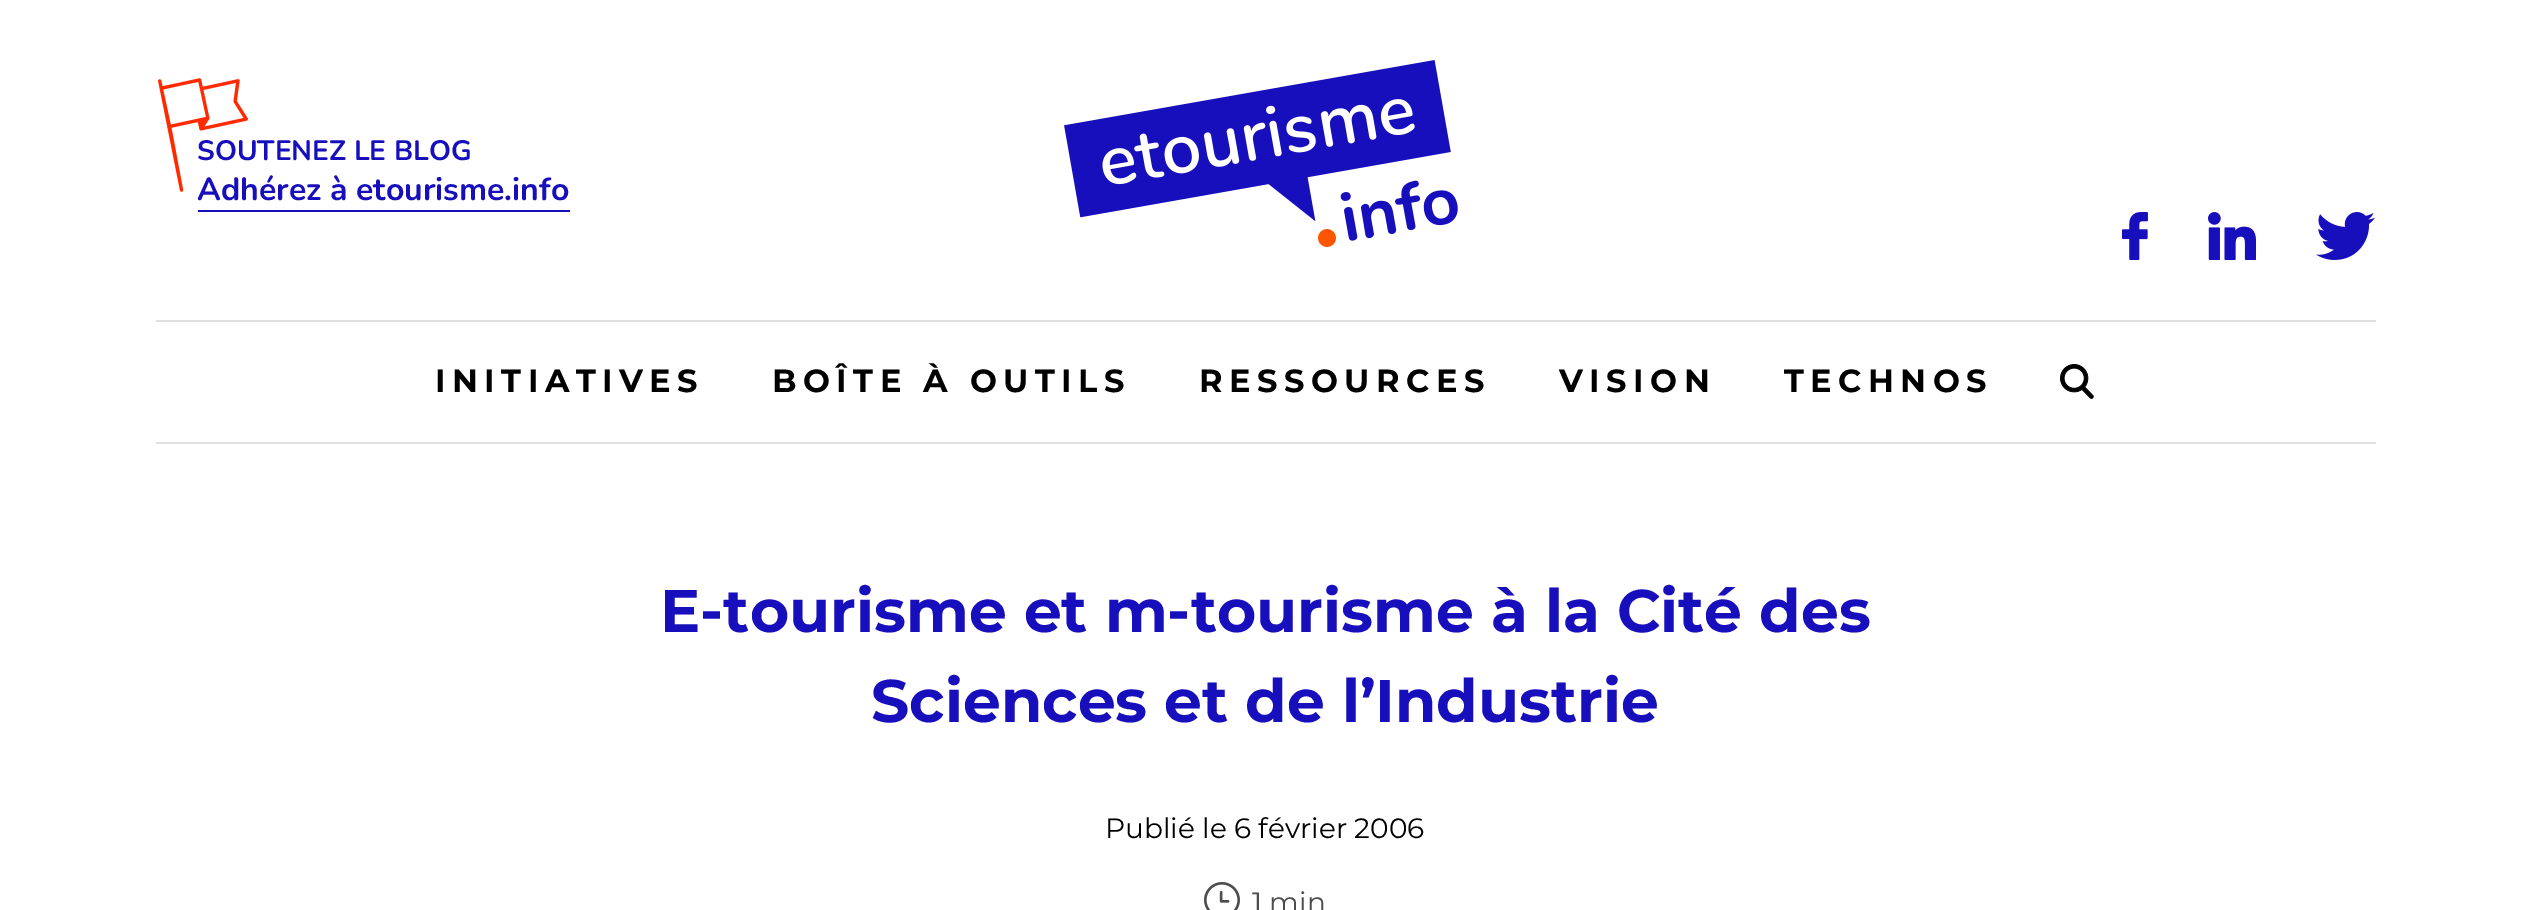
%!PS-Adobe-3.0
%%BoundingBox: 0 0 2530 910
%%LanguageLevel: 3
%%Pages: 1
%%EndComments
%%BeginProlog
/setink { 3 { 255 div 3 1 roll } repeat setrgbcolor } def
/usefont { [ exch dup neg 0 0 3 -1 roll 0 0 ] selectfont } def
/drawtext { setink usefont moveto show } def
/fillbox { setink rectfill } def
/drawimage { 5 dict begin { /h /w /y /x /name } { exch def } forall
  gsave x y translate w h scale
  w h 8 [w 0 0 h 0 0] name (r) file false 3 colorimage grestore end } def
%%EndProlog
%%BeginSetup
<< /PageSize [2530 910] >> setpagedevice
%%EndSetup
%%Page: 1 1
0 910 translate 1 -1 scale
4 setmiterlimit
0 0 2530 910 255 255 255 fillbox
(assets/img1.rgb) 158 78 90 114 drawimage
(SOUTENEZ LE BLOG) 197 160 /Nunito-Bold 28 24 15 188 drawtext
198 210 372 2 24 15 188 fillbox
(Adhérez à etourisme.info) 197 200 /Nunito-Bold 32 24 15 188 drawtext
(assets/img2.rgb) 1064 60 394 187 drawimage
(assets/img3.rgb) 2122 212 26 48 drawimage
(assets/img4.rgb) 2208 212 48 48 drawimage
(assets/img5.rgb) 2316 212 59 48 drawimage
156 320 2220 2 224 224 224 fillbox
156 442 2220 2 224 224 224 fillbox
/Montserrat-Bold 32 usefont
0 0 0 setink
435 392 moveto 6.5 0 (INITIATIVES) ashow
772 392 moveto 6.5 0 (BOÎTE À OUTILS) ashow
1199 392 moveto 6.5 0 (RESSOURCES) ashow
1559 392 moveto 6.5 0 (VISION) ashow
1784 392 moveto 6.5 0 (TECHNOS) ashow
(assets/img6.rgb) 2060 364 34 35 drawimage
(E-tourisme et m-tourisme à la Cité des) 660 632 /Montserrat-Bold 60 24 15 188 drawtext
(Sciences et de l’Industrie) 871 722 /Montserrat-Bold 60 24 15 188 drawtext
(Publié le 6 février 2006) 1105 838 /Montserrat-Regular 28 0 0 0 drawtext
(assets/img7.rgb) 1204 882 36 28 drawimage
(1 min) 1252 912 /Montserrat-Regular 28 77 77 77 drawtext
showpage
%%EOF
